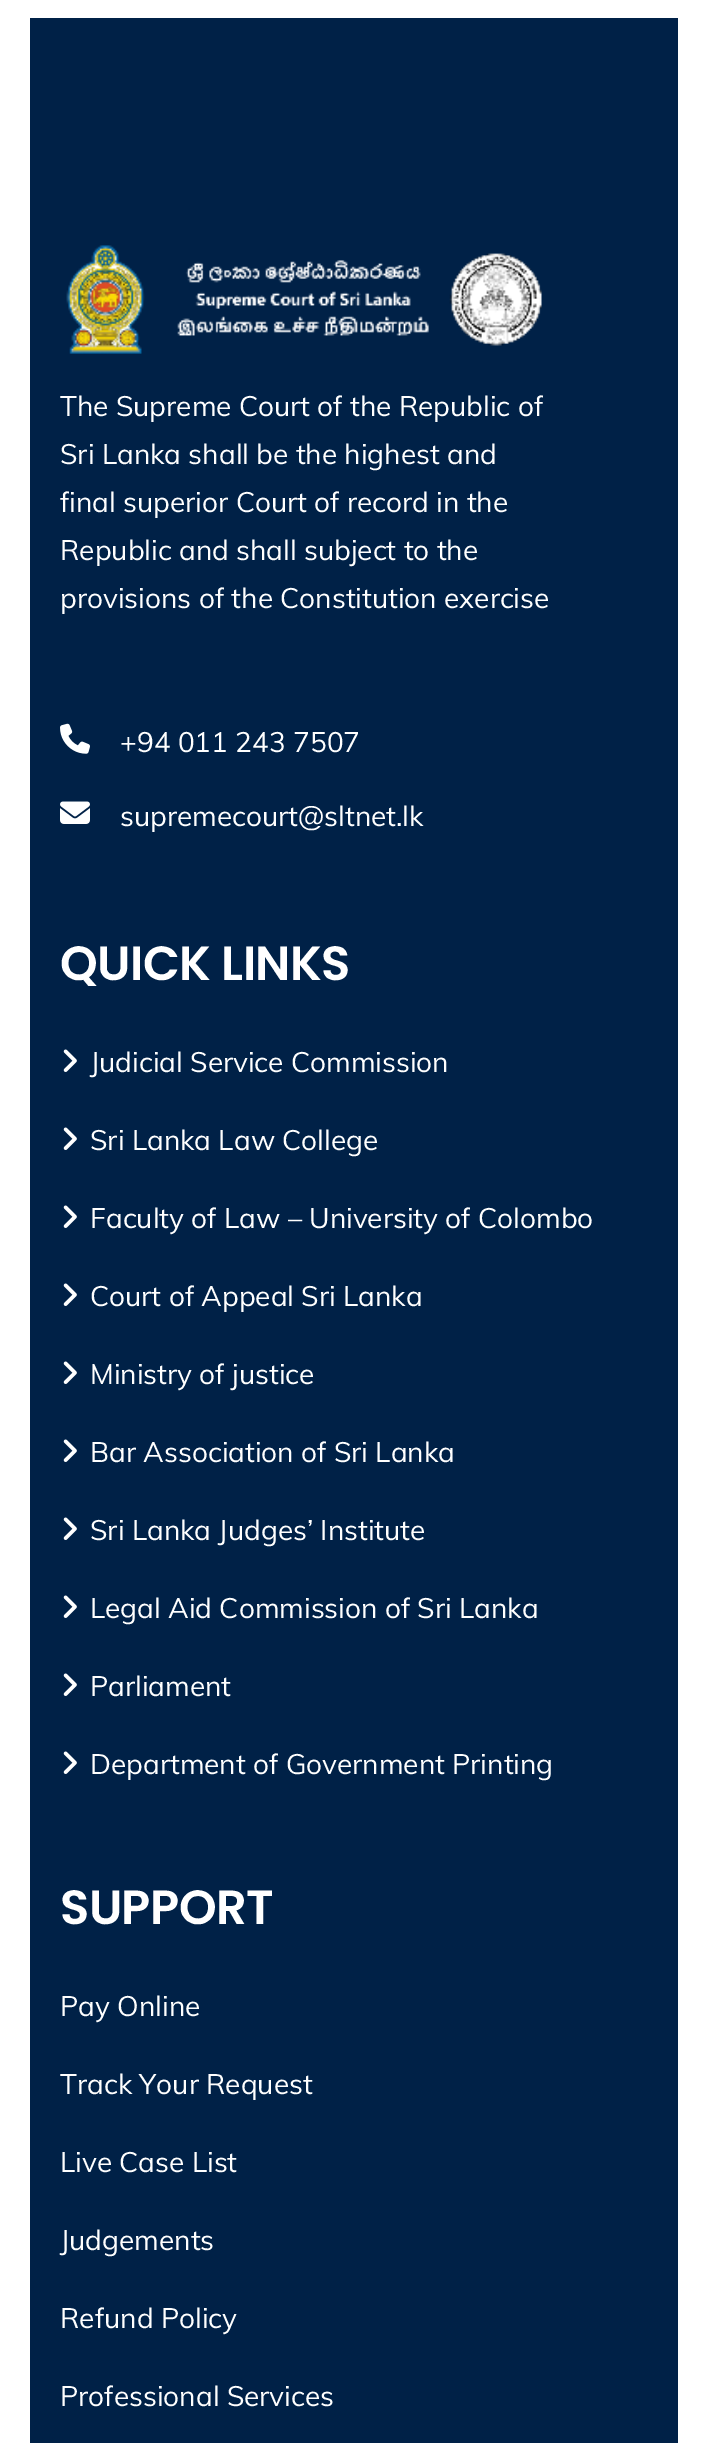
%!PS-Adobe-3.0
%%BoundingBox: 0 0 708 2443
%%LanguageLevel: 3
%%Pages: 1
%%EndComments
%%BeginProlog
/setink { 3 { 255 div 3 1 roll } repeat setrgbcolor } def
/usefont { [ exch dup neg 0 0 3 -1 roll 0 0 ] selectfont } def
/drawtext { setink usefont moveto show } def
/fillbox { setink rectfill } def
/drawimage { 5 dict begin { /h /w /y /x /name } { exch def } forall
  gsave x y translate w h scale
  w h 8 [w 0 0 h 0 0] name (r) file false 3 colorimage grestore end } def
%%EndProlog
%%BeginSetup
<< /PageSize [708 2443] >> setpagedevice
%%EndSetup
%%Page: 1 1
0 2443 translate 1 -1 scale
4 setmiterlimit
0 0 708 2443 255 255 255 fillbox
30 18 648 2425 0 33 71 fillbox
(assets/img1.rgb) 66 245 476 109 drawimage
(The Supreme Court of the Republic of) 60 416 /Muli-Regular 28 255 255 255 drawtext
(Sri Lanka shall be the highest and) 60 464 /Muli-Regular 28 255 255 255 drawtext
(final superior Court of record in the) 60 512 /Muli-Regular 28 255 255 255 drawtext
(Republic and shall subject to the) 60 560 /Muli-Regular 28 255 255 255 drawtext
(provisions of the Constitution exercise) 60 608 /Muli-Regular 28 255 255 255 drawtext
(assets/img2.rgb) 60 723 30 31 drawimage
(+94 011 243 7507) 120 752 /Muli-Regular 28 255 255 255 drawtext
(assets/img3.rgb) 60 801 30 23 drawimage
(supremecourt@sltnet.lk) 120 826 /Muli-Regular 28 255 255 255 drawtext
/Poppins-SemiBold 48 usefont
60 980 moveto -0.6 0 (QUICK LINKS) ashow
(assets/img4.rgb) 63 1049 14 23 drawimage
(Judicial Service Commission) 90 1072 /Muli-Regular 28 255 255 255 drawtext
(assets/img4.rgb) 63 1127 14 23 drawimage
(Sri Lanka Law College) 90 1150 /Muli-Regular 28 255 255 255 drawtext
(assets/img4.rgb) 63 1205 14 23 drawimage
(Faculty of Law – University of Colombo) 90 1228 /Muli-Regular 28 255 255 255 drawtext
(assets/img4.rgb) 63 1283 14 23 drawimage
(Court of Appeal Sri Lanka) 90 1306 /Muli-Regular 28 255 255 255 drawtext
(assets/img4.rgb) 63 1361 14 23 drawimage
(Ministry of justice) 90 1384 /Muli-Regular 28 255 255 255 drawtext
(assets/img4.rgb) 63 1439 14 23 drawimage
(Bar Association of Sri Lanka) 90 1462 /Muli-Regular 28 255 255 255 drawtext
(assets/img4.rgb) 63 1517 14 23 drawimage
(Sri Lanka Judges’ Institute) 90 1540 /Muli-Regular 28 255 255 255 drawtext
(assets/img4.rgb) 63 1595 14 23 drawimage
(Legal Aid Commission of Sri Lanka) 90 1618 /Muli-Regular 28 255 255 255 drawtext
(assets/img4.rgb) 63 1673 14 23 drawimage
(Parliament) 90 1696 /Muli-Regular 28 255 255 255 drawtext
(assets/img4.rgb) 63 1751 14 23 drawimage
(Department of Government Printing) 90 1774 /Muli-Regular 28 255 255 255 drawtext
/Poppins-SemiBold 48 usefont
60 1924 moveto -0.6 0 (SUPPORT) ashow
(Pay Online) 60 2016 /Muli-Regular 28 255 255 255 drawtext
(Track Your Request) 60 2094 /Muli-Regular 28 255 255 255 drawtext
(Live Case List) 60 2172 /Muli-Regular 28 255 255 255 drawtext
(Judgements) 60 2250 /Muli-Regular 28 255 255 255 drawtext
(Refund Policy) 60 2328 /Muli-Regular 28 255 255 255 drawtext
(Professional Services) 60 2406 /Muli-Regular 28 255 255 255 drawtext
showpage
%%EOF
